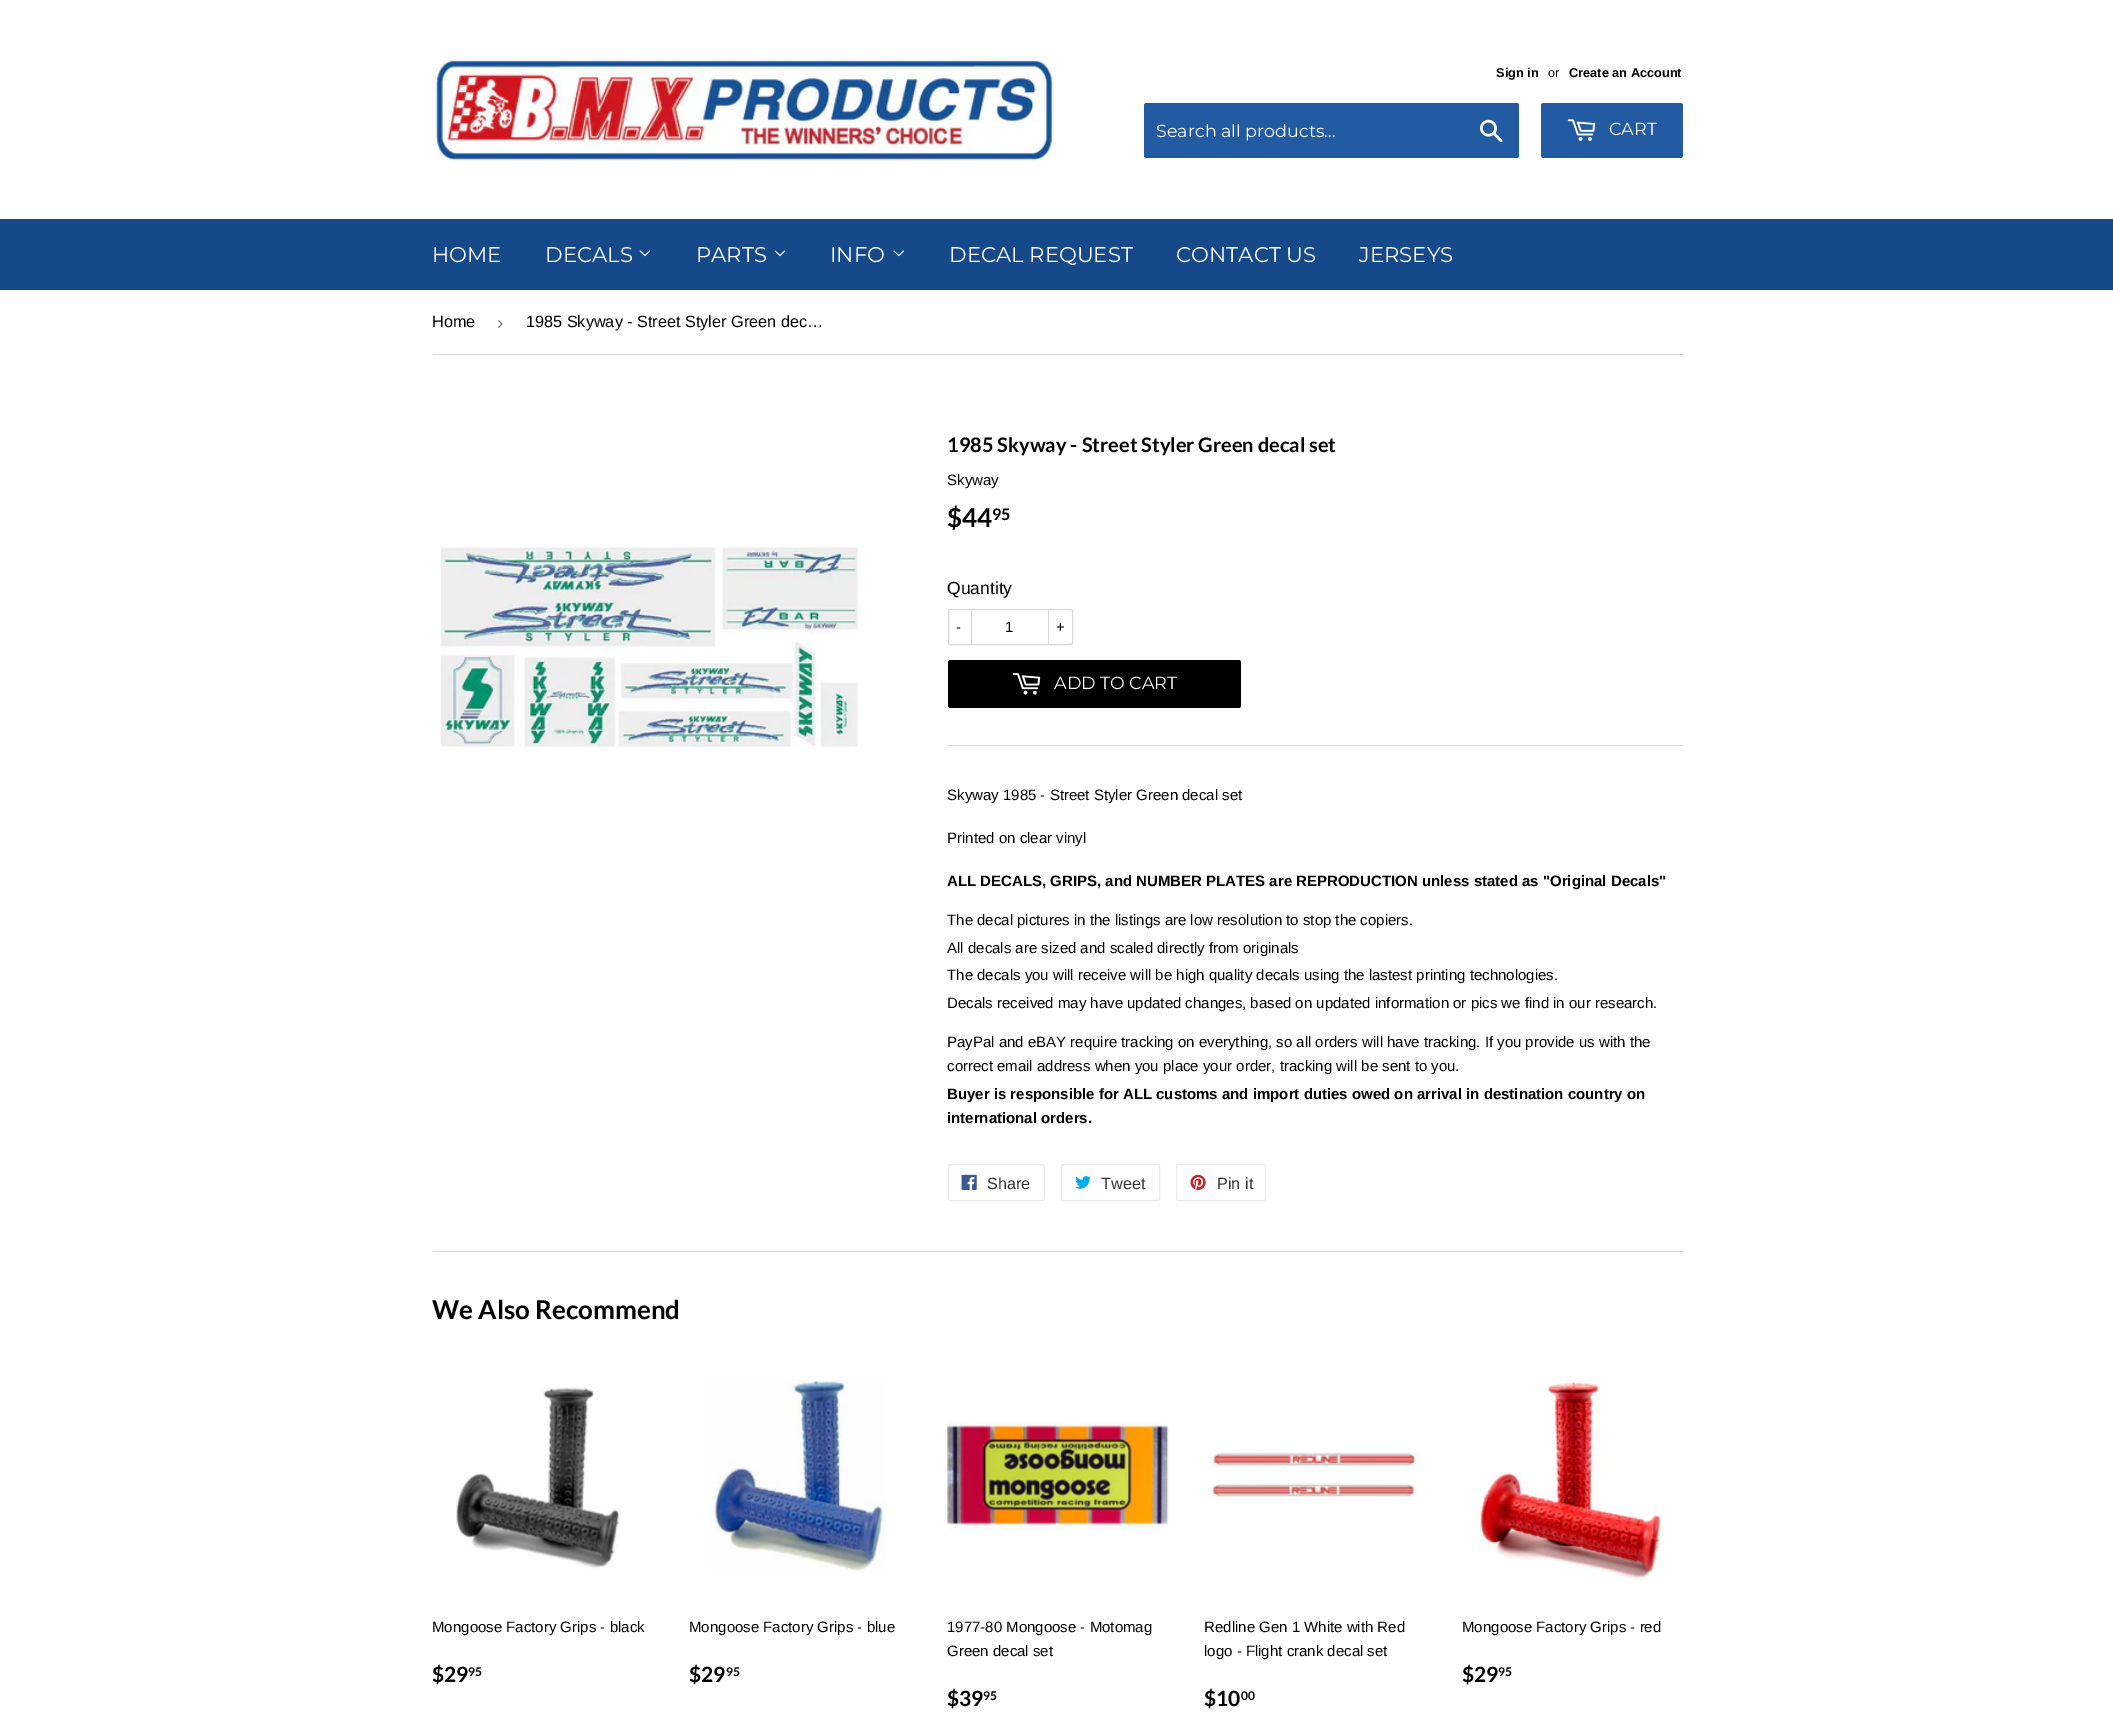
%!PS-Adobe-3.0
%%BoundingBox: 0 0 2113 1734
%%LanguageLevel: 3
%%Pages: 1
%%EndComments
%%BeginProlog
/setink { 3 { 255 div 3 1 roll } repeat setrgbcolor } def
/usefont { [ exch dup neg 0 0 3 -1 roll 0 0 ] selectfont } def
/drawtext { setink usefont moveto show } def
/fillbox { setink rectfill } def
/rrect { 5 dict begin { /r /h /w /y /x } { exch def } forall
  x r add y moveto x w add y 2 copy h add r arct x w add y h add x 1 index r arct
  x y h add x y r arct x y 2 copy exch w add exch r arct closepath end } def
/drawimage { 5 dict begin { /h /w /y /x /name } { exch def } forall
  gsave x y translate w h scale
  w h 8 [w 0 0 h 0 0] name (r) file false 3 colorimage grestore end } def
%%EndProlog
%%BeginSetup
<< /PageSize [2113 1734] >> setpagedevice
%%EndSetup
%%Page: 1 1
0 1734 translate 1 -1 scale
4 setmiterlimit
0 0 2113 1734 255 255 255 fillbox
(assets/img1.rgb) 432 56 621 105 drawimage
(Sign in) 1496 77 /LiberationSans-Bold 12.75 0 0 0 drawtext
(or) 1548 77 /LiberationSans-Regular 12.75 0 0 0 drawtext
(Create an Account) 1569 77 /LiberationSans-Bold 12.75 0 0 0 drawtext
34 91 161 setink
1144 103 375 55 2.5 rrect fill
(Search all products...) 1156 137 /Montserrat-Thin 17.5 255 255 255 drawtext
(assets/img2.rgb) 1480 119 23 24 drawimage
34 91 161 setink
1541 103 142 55 2.5 rrect fill
(assets/img3.rgb) 1567 119 29 22 drawimage
(CART) 1609 135 /Montserrat-Thin 17.5 255 255 255 drawtext
0 219 2113 71 21 73 137 fillbox
(HOME) 432 262 /Montserrat-Thin 21.25 255 255 255 drawtext
(DECALS) 545 262 /Montserrat-Thin 21.25 255 255 255 drawtext
(assets/img4.rgb) 639 250 12 7 drawimage
(PARTS) 696 262 /Montserrat-Thin 21.25 255 255 255 drawtext
(assets/img4.rgb) 774 250 12 7 drawimage
(INFO) 830 262 /Montserrat-Thin 21.25 255 255 255 drawtext
(assets/img5.rgb) 893 250 11 7 drawimage
(DECAL REQUEST) 949 262 /Montserrat-Thin 21.25 255 255 255 drawtext
(CONTACT US) 1176 262 /Montserrat-Thin 21.25 255 255 255 drawtext
(JERSEYS) 1359 262 /Montserrat-Thin 21.25 255 255 255 drawtext
433 354 1250 1 216 214 214 fillbox
(Home) 432 327 /LiberationSans-Regular 16.25 0 0 0 drawtext
(›) 497 329 /LiberationSans-Regular 19 118 118 118 drawtext
(1985 Skyway - Street Styler Green dec…) 526 327 /LiberationSans-Regular 16.25 0 0 0 drawtext
(assets/img6.rgb) 440 546 420 203 drawimage
(1985 Skyway - Street Styler Green decal set) 947 452 /Lato-Bold 20 0 0 0 drawtext
(Skyway) 947 485 /LiberationSans-Regular 15 0 0 0 drawtext
($44) 947 527 /Lato-Bold 26 0 0 0 drawtext
(95) 992 520 /Lato-Bold 16 0 0 0 drawtext
(Quantity) 947 594 /LiberationSans-Regular 17.5 0 0 0 drawtext
216 214 214 setink
948.5 609.5 124 35 2 rrect stroke
971 609 1 36 216 214 214 fillbox
(-) 956 632 /LiberationSans-Regular 15 0 0 0 drawtext
(1) 1005 632 /LiberationSans-Regular 15 0 0 0 drawtext
1048 609 1 36 216 214 214 fillbox
(+) 1056 632 /LiberationSans-Regular 15 0 0 0 drawtext
948 660 293 48 2.5 rrect fill
(assets/img7.rgb) 1012 673 29 22 drawimage
(ADD TO CART) 1054 689 /Montserrat-Thin 17.5 255 255 255 drawtext
948 745 735 1 216 214 214 fillbox
(Skyway 1985 - Street Styler Green decal set) 947 800 /LiberationSans-Regular 15 0 0 0 drawtext
(Printed on clear vinyl) 947 843 /LiberationSans-Regular 15 0 0 0 drawtext
(ALL DECALS, GRIPS, and NUMBER PLATES are REPRODUCTION unless stated as "Original Decals") 947 886 /LiberationSans-Bold 15 0 0 0 drawtext
(The decal pictures in the listings are low resolution to stop the copiers.) 947 925 /LiberationSans-Regular 15 0 0 0 drawtext
(All decals are sized and scaled directly from originals) 947 953 /LiberationSans-Regular 15 0 0 0 drawtext
(The decals you will receive will be high quality decals using the lastest printing technologies.) 947 980 /LiberationSans-Regular 15 0 0 0 drawtext
(Decals received may have updated changes, based on updated information or pics we find in our research.) 947 1008 /LiberationSans-Regular 15 0 0 0 drawtext
(PayPal and eBAY require tracking on everything, so all orders will have tracking. If you provide us with the) 947 1047 /LiberationSans-Regular 15 0 0 0 drawtext
(correct email address when you place your order, tracking will be sent to you.) 947 1071 /LiberationSans-Regular 15 0 0 0 drawtext
(Buyer is responsible for ALL customs and import duties owed on arrival in destination country on) 947 1099 /LiberationSans-Bold 15 0 0 0 drawtext
(international orders.) 947 1123 /LiberationSans-Bold 15 0 0 0 drawtext
236 236 236 setink
948.5 1164.5 96 36 2 rrect stroke
(assets/img8.rgb) 961 1174 16 16 drawimage
(Share) 987 1189 /LiberationSans-Regular 16.25 51 51 51 drawtext
236 236 236 setink
1061.5 1164.5 98 36 2 rrect stroke
(assets/img9.rgb) 1075 1176 16 13 drawimage
(Tweet) 1101 1189 /LiberationSans-Regular 16.25 51 51 51 drawtext
236 236 236 setink
1176.5 1164.5 89 36 2 rrect stroke
(assets/img10.rgb) 1190 1174 16 16 drawimage
(Pin it) 1217 1189 /LiberationSans-Regular 16.25 51 51 51 drawtext
433 1251 1250 1 216 214 214 fillbox
(We Also Recommend) 432 1319 /Lato-Bold 26 0 0 0 drawtext
(assets/img11.rgb) 456 1386 164 183 drawimage
(Mongoose Factory Grips - black) 432 1632 /LiberationSans-Regular 15 0 0 0 drawtext
($29) 432 1682 /Lato-Bold 21 0 0 0 drawtext
(95) 468 1676 /Lato-Bold 12 0 0 0 drawtext
(assets/img12.rgb) 709 1379 177 192 drawimage
(Mongoose Factory Grips - blue) 689 1632 /LiberationSans-Regular 15 0 0 0 drawtext
($29) 689 1682 /Lato-Bold 21 0 0 0 drawtext
(95) 726 1676 /Lato-Bold 12 0 0 0 drawtext
(assets/img13.rgb) 947 1421 222 110 drawimage
(1977-80 Mongoose - Motomag) 947 1632 /LiberationSans-Regular 15 0 0 0 drawtext
(Green decal set) 947 1656 /LiberationSans-Regular 15 0 0 0 drawtext
($39) 947 1706 /Lato-Bold 21 0 0 0 drawtext
(95) 983 1700 /Lato-Bold 12 0 0 0 drawtext
(assets/img14.rgb) 1205 1452 215 50 drawimage
(Redline Gen 1 White with Red) 1204 1632 /LiberationSans-Regular 15 0 0 0 drawtext
(logo - Flight crank decal set) 1204 1656 /LiberationSans-Regular 15 0 0 0 drawtext
($10) 1204 1706 /Lato-Bold 21 0 0 0 drawtext
(00) 1241 1700 /Lato-Bold 12 0 0 0 drawtext
(assets/img15.rgb) 1477 1380 187 200 drawimage
(Mongoose Factory Grips - red) 1462 1632 /LiberationSans-Regular 15 0 0 0 drawtext
($29) 1462 1682 /Lato-Bold 21 0 0 0 drawtext
(95) 1498 1676 /Lato-Bold 12 0 0 0 drawtext
showpage
%%EOF
